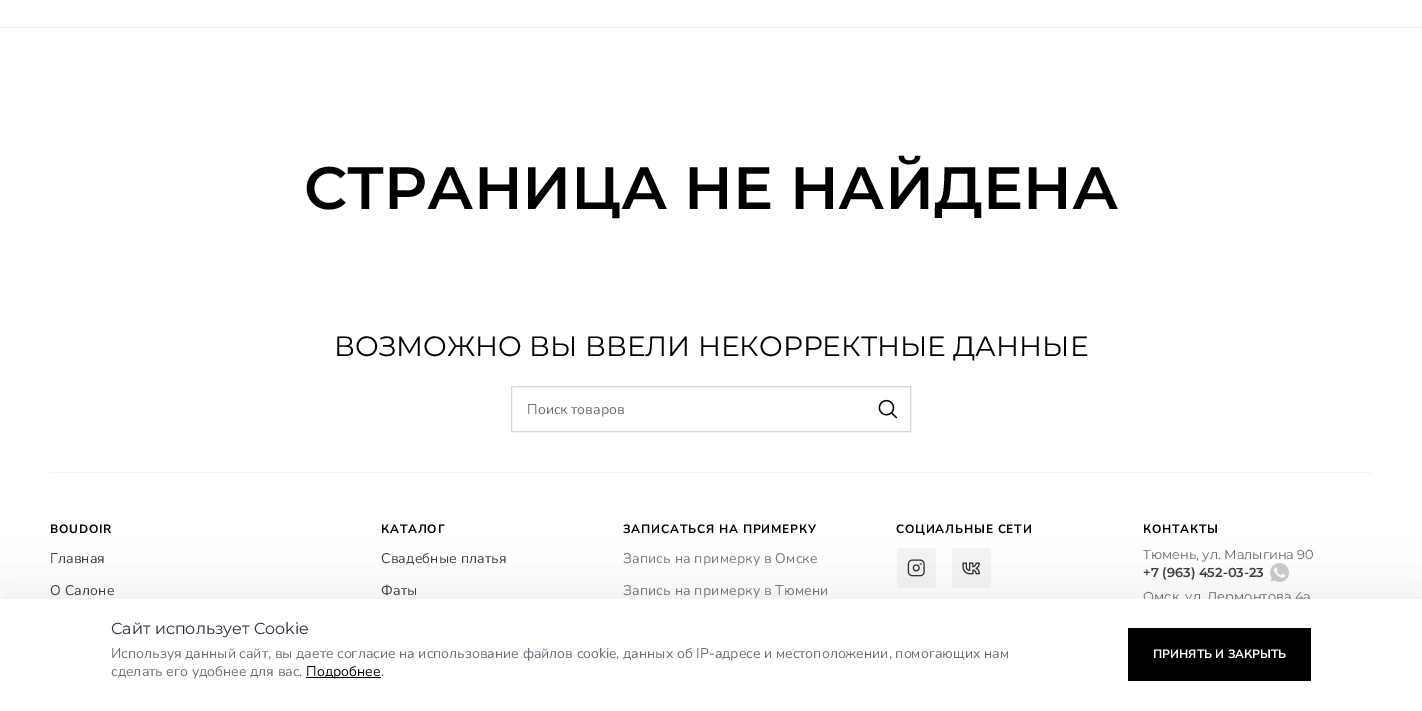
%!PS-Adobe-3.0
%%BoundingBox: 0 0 1422 711
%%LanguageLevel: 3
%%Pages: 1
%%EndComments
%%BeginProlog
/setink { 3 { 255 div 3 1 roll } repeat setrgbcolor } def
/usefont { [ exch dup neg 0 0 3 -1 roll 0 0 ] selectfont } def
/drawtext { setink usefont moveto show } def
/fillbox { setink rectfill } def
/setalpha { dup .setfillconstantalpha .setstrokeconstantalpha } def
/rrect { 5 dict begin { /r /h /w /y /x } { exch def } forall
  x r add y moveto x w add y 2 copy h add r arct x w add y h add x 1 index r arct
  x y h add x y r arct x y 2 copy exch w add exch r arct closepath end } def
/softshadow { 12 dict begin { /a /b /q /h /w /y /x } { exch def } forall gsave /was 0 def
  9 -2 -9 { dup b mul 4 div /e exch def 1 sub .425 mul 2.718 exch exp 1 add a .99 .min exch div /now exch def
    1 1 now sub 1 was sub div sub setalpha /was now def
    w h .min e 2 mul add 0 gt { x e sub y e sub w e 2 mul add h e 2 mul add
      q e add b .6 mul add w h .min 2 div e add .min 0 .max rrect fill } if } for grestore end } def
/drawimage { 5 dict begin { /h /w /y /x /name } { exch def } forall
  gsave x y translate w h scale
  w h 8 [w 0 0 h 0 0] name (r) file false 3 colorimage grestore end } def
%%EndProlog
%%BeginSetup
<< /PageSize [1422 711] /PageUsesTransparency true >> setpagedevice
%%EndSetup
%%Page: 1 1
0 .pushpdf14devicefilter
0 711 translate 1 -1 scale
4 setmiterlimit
0 0 1422 711 255 255 255 fillbox
0 27 1422 1 238 238 238 fillbox
(СТРАНИЦА НЕ НАЙДЕНА) 304 209 /Montserrat-SemiBold 59.75 0 0 0 drawtext
(ВОЗМОЖНО ВЫ ВВЕЛИ НЕКОРРЕКТНЫЕ ДАННЫЕ) 334 356 /Montserrat-Regular 28 0 0 0 drawtext
215 215 215 setink
511.5 386.5 399 45 rectstroke
(Поиск товаров) 527 414 /NunitoSans-Regular 14 105 105 105 drawtext
(assets/img1.rgb) 878 399 20 20 drawimage
50 472 1322 1 244 244 244 fillbox
/NunitoSans-Bold 12 usefont
0 0 0 setink
50 533 moveto 0.8 0 (BOUDOIR) ashow
/NunitoSans-Regular 14 usefont
64 64 64 setink
50 563 moveto 0.15 0 (Главная) ashow
50 595 moveto 0.15 0 (О Салоне) ashow
/NunitoSans-Bold 12 usefont
0 0 0 setink
381 533 moveto 0.8 0 (КАТАЛОГ) ashow
/NunitoSans-Regular 14 usefont
64 64 64 setink
381 563 moveto 0.15 0 (Свадебные платья) ashow
381 595 moveto 0.15 0 (Фаты) ashow
/NunitoSans-Bold 12 usefont
0 0 0 setink
623 533 moveto 0.8 0 (ЗАПИСАТЬСЯ НА ПРИМЕРКУ) ashow
/NunitoSans-Regular 14 usefont
122 122 122 setink
623 563 moveto 0.15 0 (Запись на примерку в Омске) ashow
623 595 moveto 0.15 0 (Запись на примерку в Тюмени) ashow
/NunitoSans-Bold 12 usefont
0 0 0 setink
896 533 moveto 0.8 0 (СОЦИАЛЬНЫЕ СЕТИ) ashow
(assets/img2.rgb) 897 548 39 40 drawimage
(assets/img3.rgb) 952 548 39 40 drawimage
1143 533 moveto 0.8 0 (КОНТАКТЫ) ashow
(Тюмень, ул. Малыгина 90) 1143 559 /Montserrat-Regular 13 105 105 105 drawtext
(+7 \(963\) 452-03-23) 1143 577 /Montserrat-SemiBold 13 64 64 64 drawtext
(assets/img4.rgb) 1270 563 19 19 drawimage
(Омск, ул. Лермонтова 4а) 1143 601 /Montserrat-Regular 13 105 105 105 drawtext
0 0 0 setink
0 598 1422 112 0 27.5 0.08 softshadow
0 599 1422 112 255 255 255 fillbox
(Сайт использует Cookie) 111 634 /Montserrat-Regular 16 39 49 66 drawtext
(Используя данный сайт, вы даете согласие на использование файлов cookie, данных об IP-адресе и местоположении, помогающих нам) 111 658 /NunitoSans-Regular 14 104 111 123 drawtext
(сделать его удобнее для вас.) 111 676 /NunitoSans-Regular 14 104 111 123 drawtext
306 677 75 1 0 0 0 fillbox
(Подробнее) 306 676 /NunitoSans-Regular 14 0 0 0 drawtext
(.) 381 676 /NunitoSans-Regular 14 104 111 123 drawtext
1128 628 183 53 0 0 0 fillbox
(ПРИНЯТЬ И ЗАКРЫТЬ) 1153 658 /NunitoSans-Bold 12 255 255 255 drawtext
.poppdf14devicefilter showpage
%%EOF
